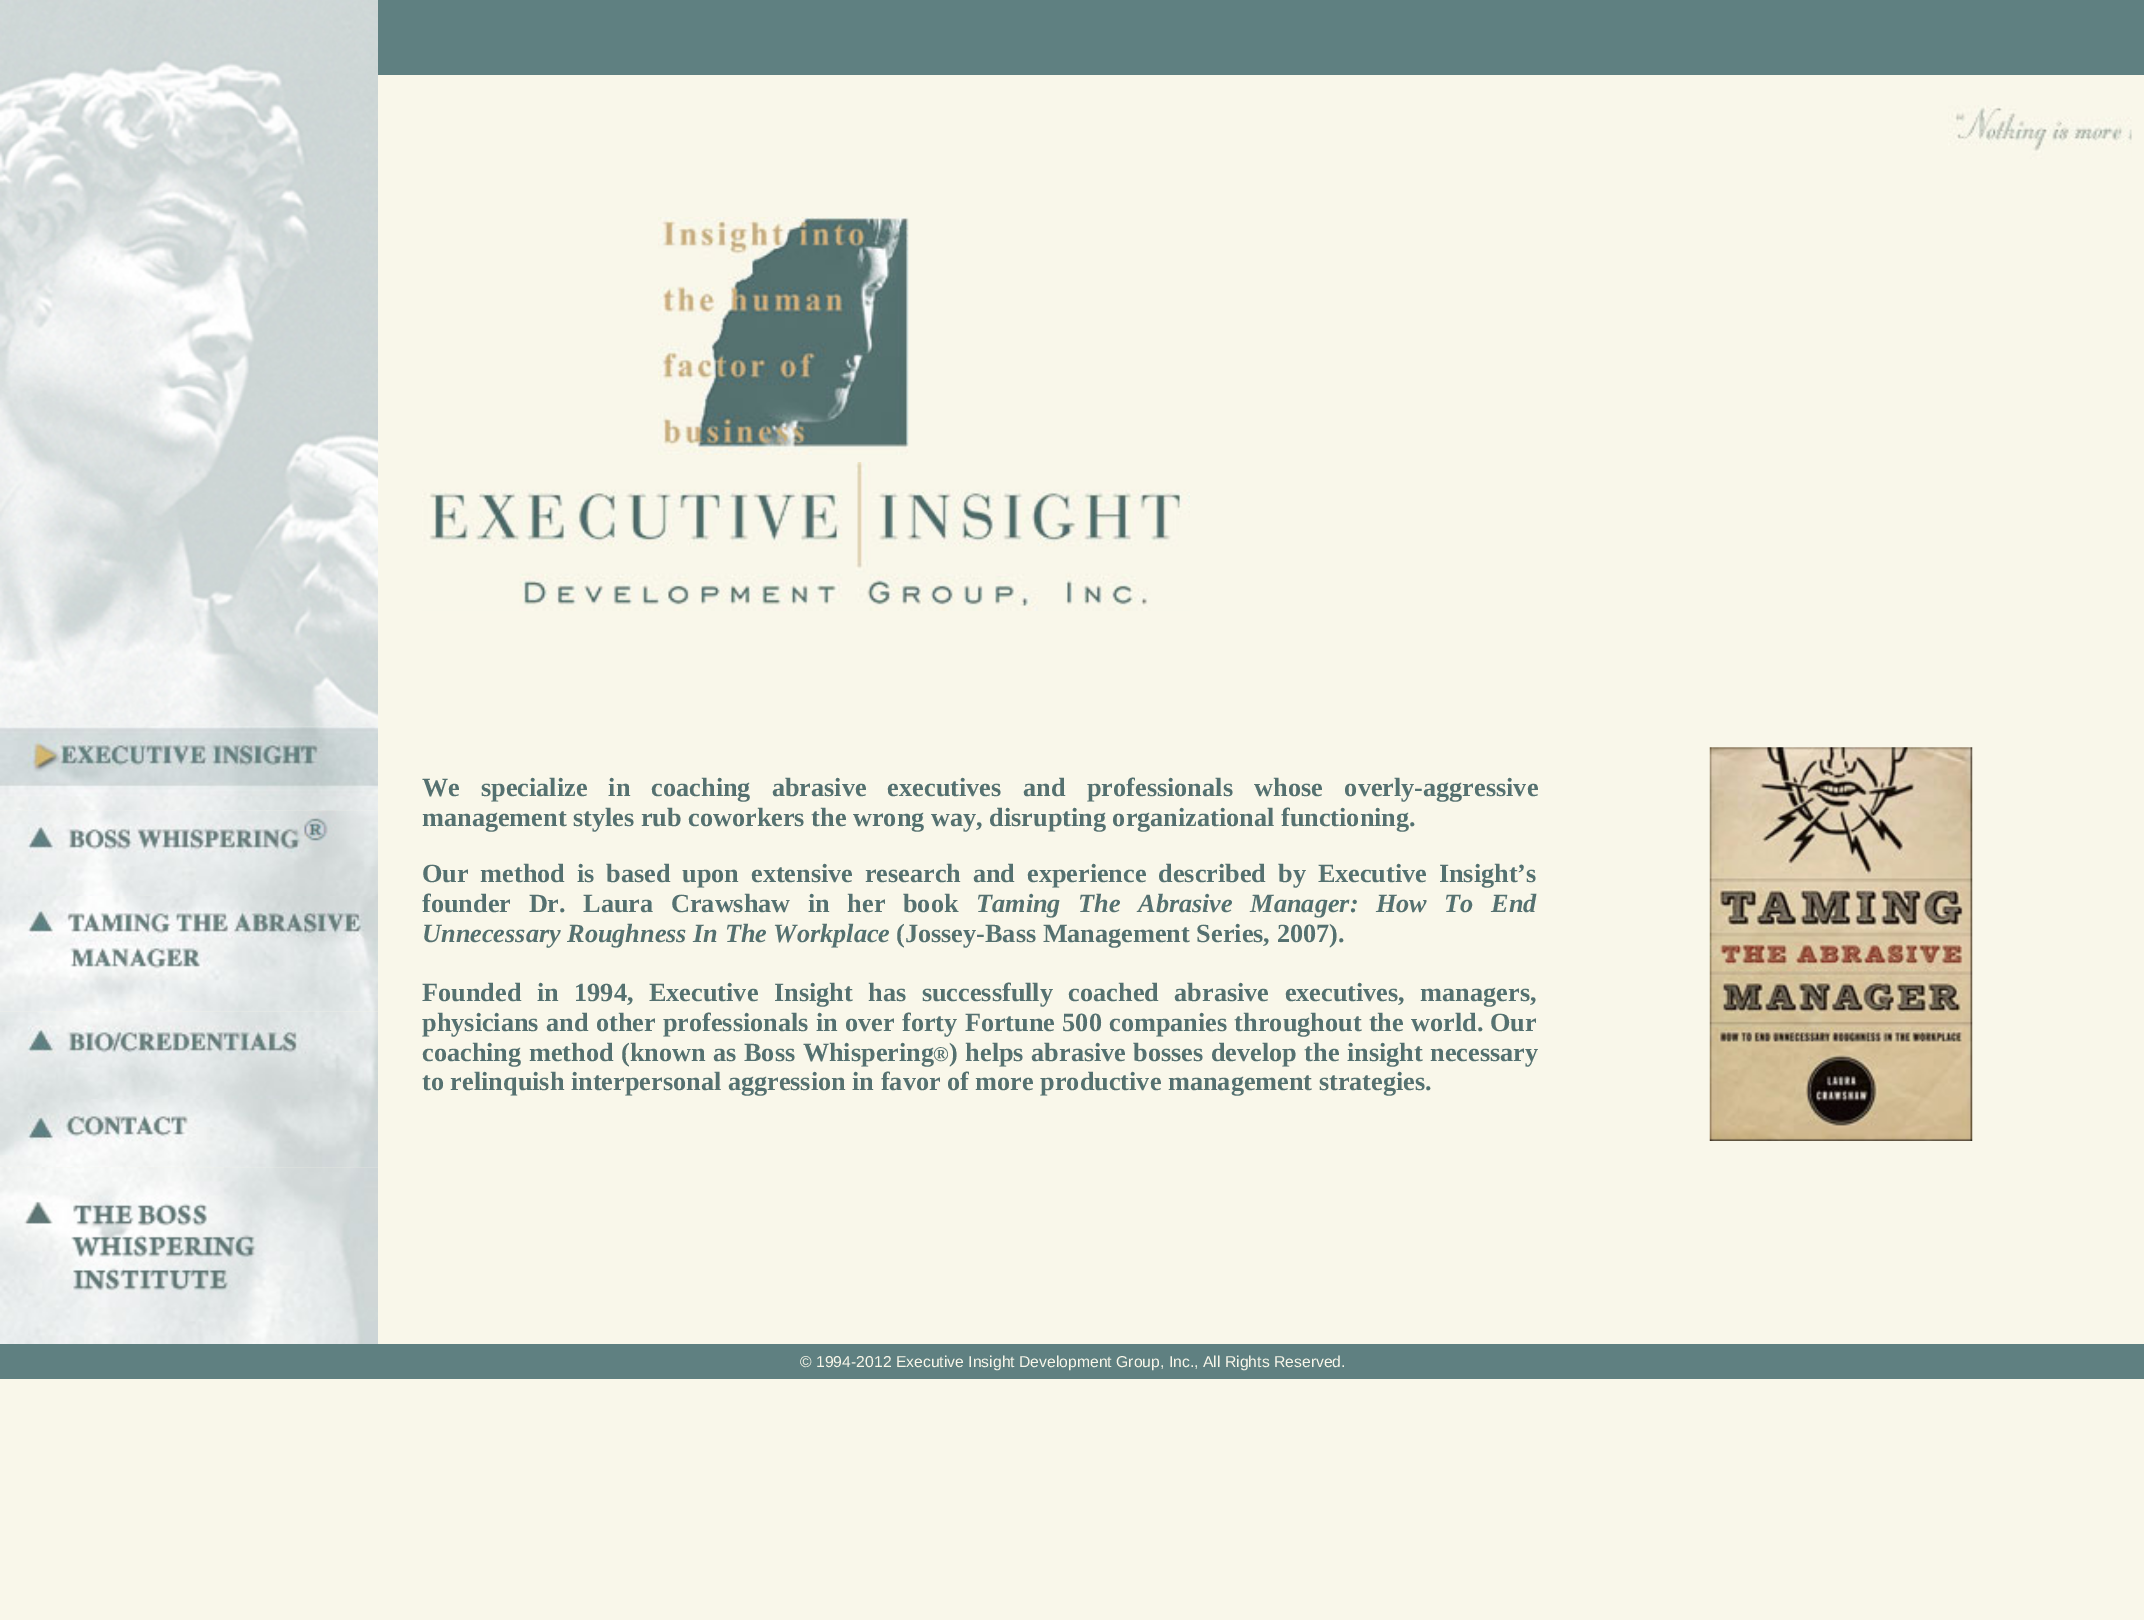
%!PS-Adobe-3.0
%%BoundingBox: 0 0 2144 1620
%%LanguageLevel: 3
%%Pages: 1
%%EndComments
%%BeginProlog
/setink { 3 { 255 div 3 1 roll } repeat setrgbcolor } def
/usefont { [ exch dup neg 0 0 3 -1 roll 0 0 ] selectfont } def
/drawtext { setink usefont moveto show } def
/fillbox { setink rectfill } def
/drawimage { 5 dict begin { /h /w /y /x /name } { exch def } forall
  gsave x y translate w h scale
  w h 8 [w 0 0 h 0 0] name (r) file false 3 colorimage grestore end } def
%%EndProlog
%%BeginSetup
<< /PageSize [2144 1620] >> setpagedevice
%%EndSetup
%%Page: 1 1
0 1620 translate 1 -1 scale
4 setmiterlimit
0 0 2144 1620 249 247 234 fillbox
(assets/img1.rgb) 0 0 378 727 drawimage
(assets/img2.rgb) 0 726 378 85 drawimage
(assets/img3.rgb) 0 810 378 86 drawimage
(assets/img4.rgb) 0 896 378 116 drawimage
(assets/img5.rgb) 0 1011 378 88 drawimage
(assets/img6.rgb) 0 1099 378 69 drawimage
(assets/img7.rgb) 0 1167 378 177 drawimage
378 0 1766 75 95 128 129 fillbox
(assets/img8.rgb) 1948 105 184 54 drawimage
(assets/img9.rgb) 658 217 251 238 drawimage
(assets/img10.rgb) 422 462 768 149 drawimage
/LiberationSerif-Bold 26.25 usefont
85 113 112 setink
422 796 moveto 14.5 0 32 (We specialize in coaching abrasive executives) widthshow
1023 796 moveto 15 0 32 (and professionals whose overly-aggressive) widthshow
(management styles rub coworkers the wrong way, disrupting organizational functioning.) 422 826 /LiberationSerif-Bold 26.25 85 113 112 drawtext
422 882 moveto 5.25 0 32 (Our method is based upon extensive research and experience described) widthshow
1278 882 moveto 5.25 0 32 (by Executive Insight’s) widthshow
422 912 moveto 11 0 32 (founder Dr. Laura Crawshaw in her book) widthshow
/LiberationSerif-BoldItalic 26.25 usefont
976 912 moveto 11 0 32 (Taming The Abrasive Manager: How To End) widthshow
(Unnecessary Roughness In The Workplace) 422 942 /LiberationSerif-BoldItalic 26.25 85 113 112 drawtext
(\(Jossey-Bass Management Series, 2007\).) 896 942 /LiberationSerif-Bold 26.25 85 113 112 drawtext
422 1001 moveto 9 0 32 (Founded in 1994, Executive Insight has successfully coached abrasive executives, managers,) widthshow
422 1031 moveto 0.75 0 32 (physicians and other professionals in over forty Fortune 500 companies throughout the world.) widthshow
(Our) 1490 1031 /LiberationSerif-Bold 26.25 85 113 112 drawtext
422 1061 moveto 1 0 32 (coaching method \(known as Boss Whispering) widthshow
(®) 933 1061 /LiberationSerif-Bold 21 85 113 112 drawtext
/LiberationSerif-Bold 26.25 usefont
949 1061 moveto 1 0 32 (\) helps abrasive) widthshow
1133 1061 moveto 1 0 32 (bosses develop the insight necessary) widthshow
(to relinquish interpersonal aggression in favor of more productive management strategies.) 422 1090 /LiberationSerif-Bold 26.25 85 113 112 drawtext
(assets/img11.rgb) 1709 747 264 394 drawimage
0 1344 2144 35 95 128 129 fillbox
(© 1994-2012 Executive Insight Development Group, Inc., All Rights Reserved.) 800 1367 /LiberationSans-Regular 15.75 249 247 234 drawtext
showpage
%%EOF
